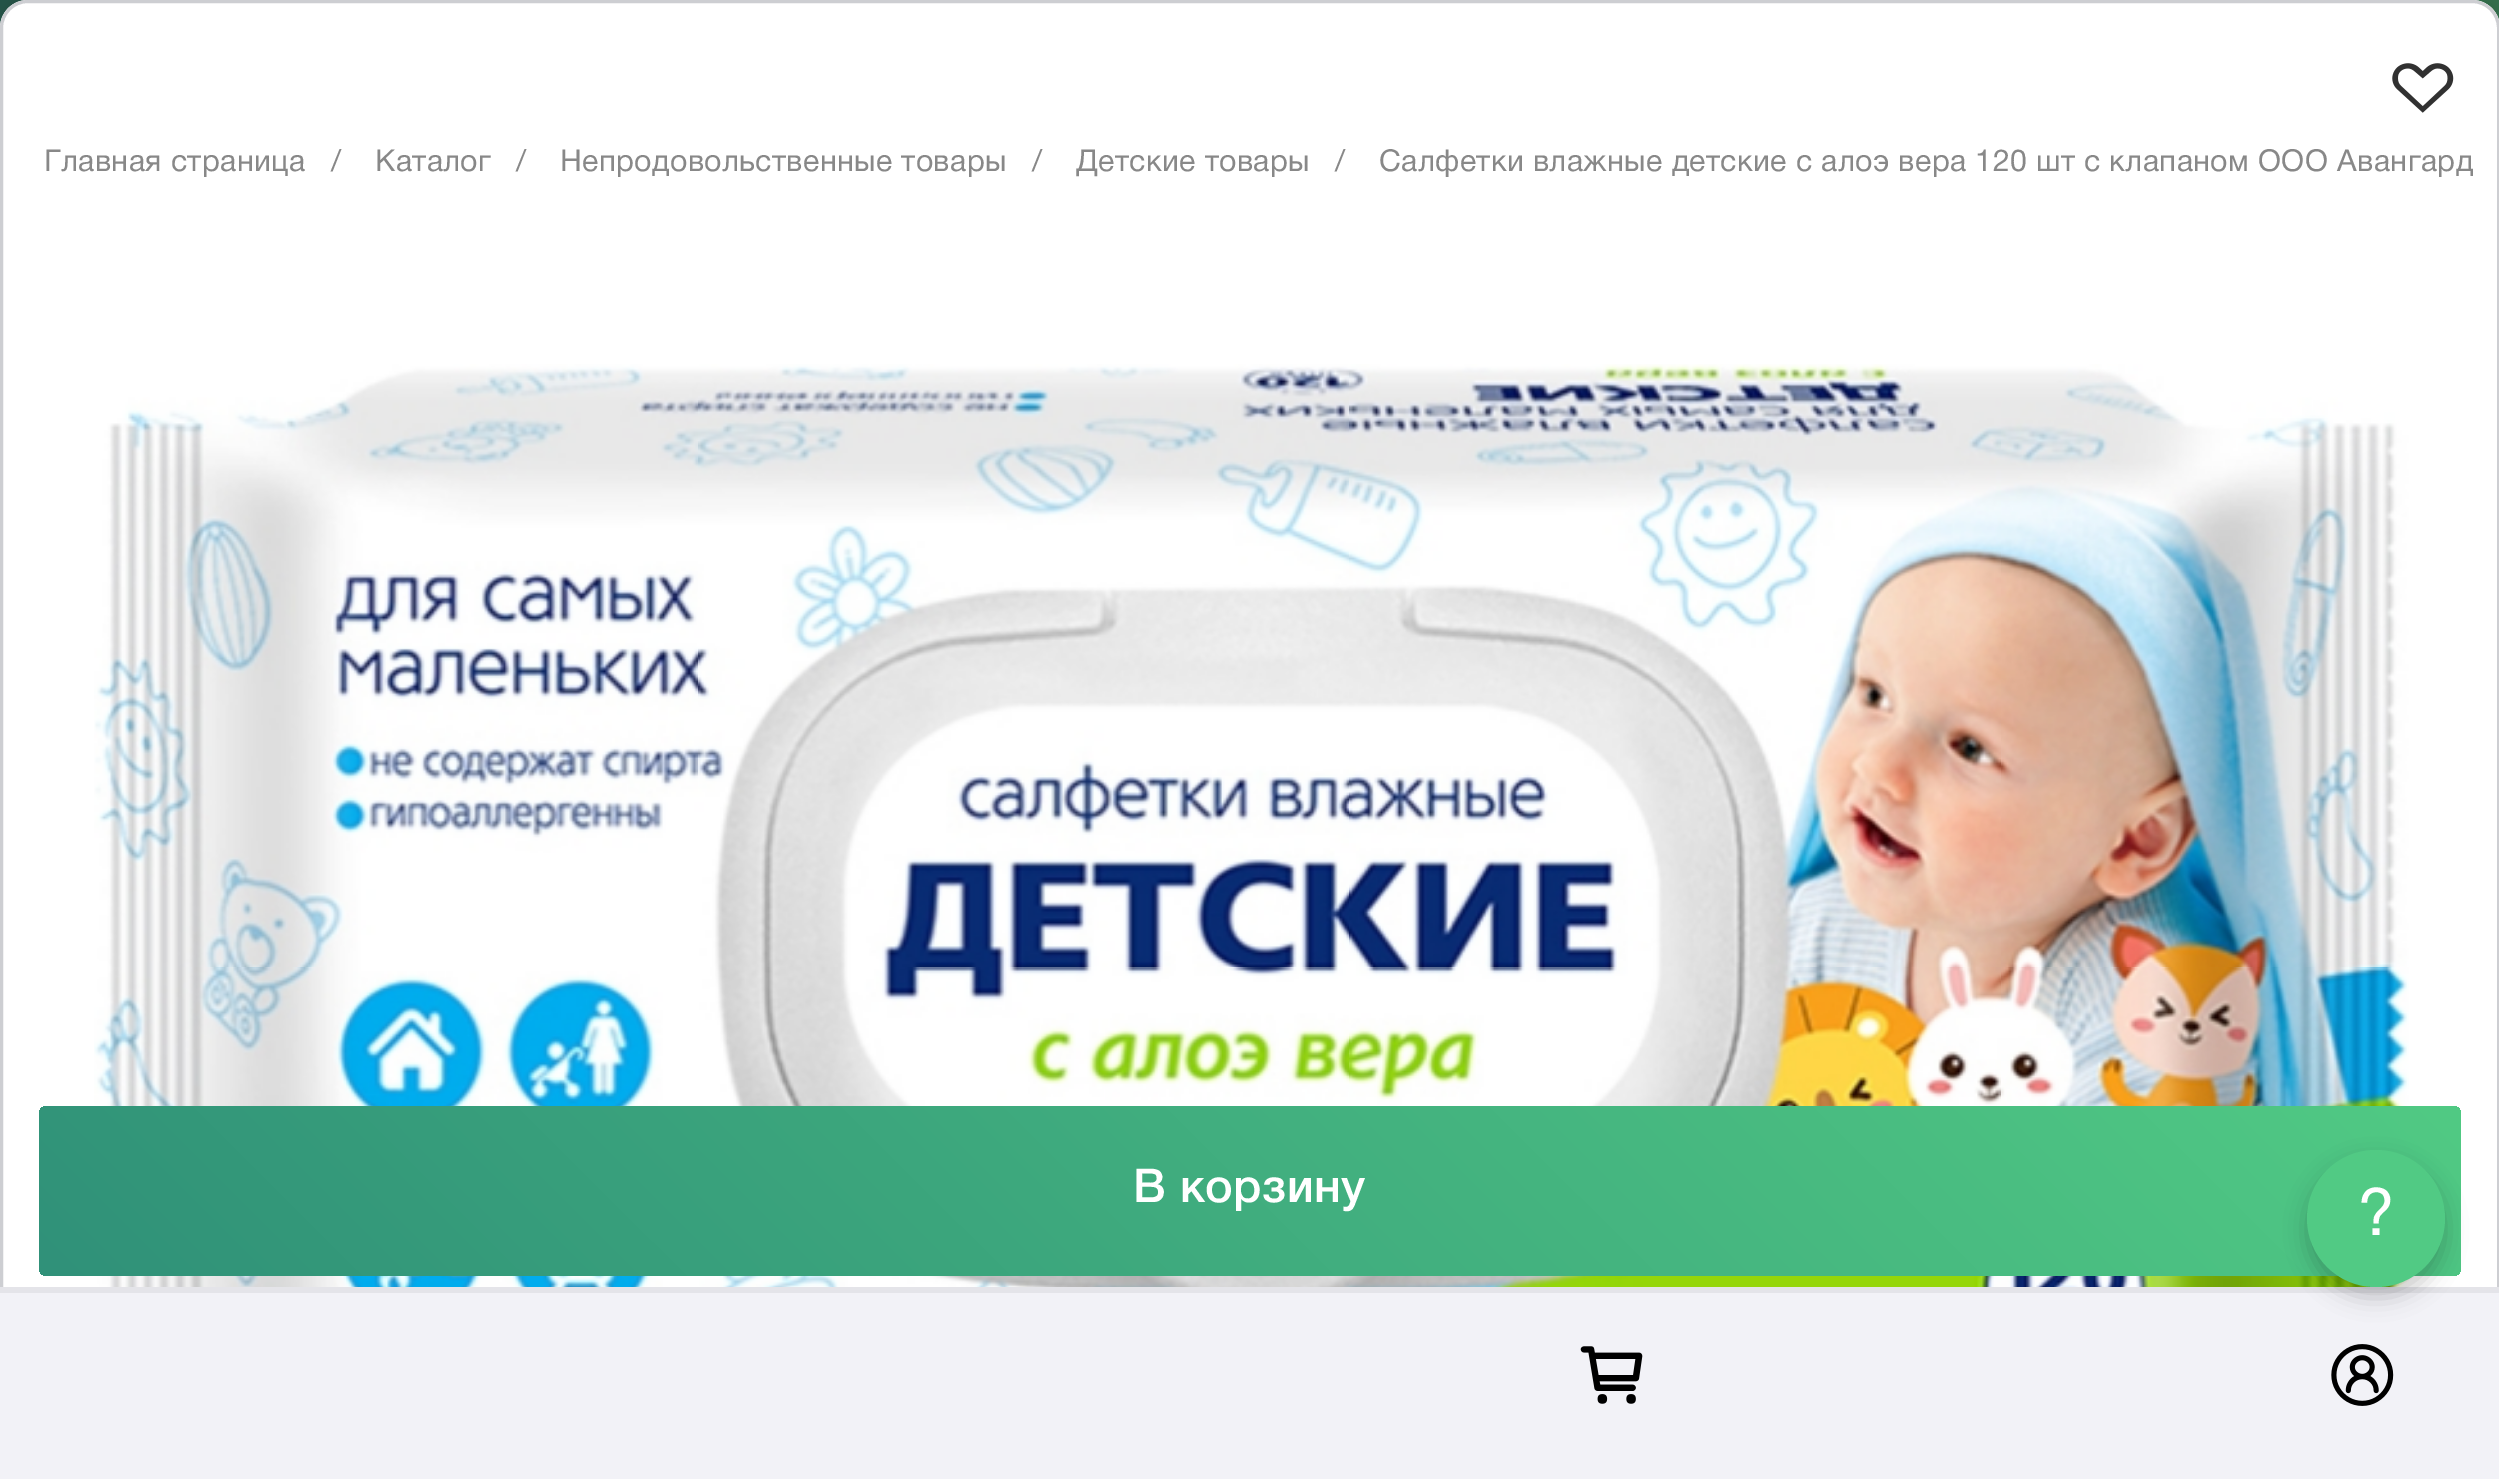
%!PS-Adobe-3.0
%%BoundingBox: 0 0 2499 1479
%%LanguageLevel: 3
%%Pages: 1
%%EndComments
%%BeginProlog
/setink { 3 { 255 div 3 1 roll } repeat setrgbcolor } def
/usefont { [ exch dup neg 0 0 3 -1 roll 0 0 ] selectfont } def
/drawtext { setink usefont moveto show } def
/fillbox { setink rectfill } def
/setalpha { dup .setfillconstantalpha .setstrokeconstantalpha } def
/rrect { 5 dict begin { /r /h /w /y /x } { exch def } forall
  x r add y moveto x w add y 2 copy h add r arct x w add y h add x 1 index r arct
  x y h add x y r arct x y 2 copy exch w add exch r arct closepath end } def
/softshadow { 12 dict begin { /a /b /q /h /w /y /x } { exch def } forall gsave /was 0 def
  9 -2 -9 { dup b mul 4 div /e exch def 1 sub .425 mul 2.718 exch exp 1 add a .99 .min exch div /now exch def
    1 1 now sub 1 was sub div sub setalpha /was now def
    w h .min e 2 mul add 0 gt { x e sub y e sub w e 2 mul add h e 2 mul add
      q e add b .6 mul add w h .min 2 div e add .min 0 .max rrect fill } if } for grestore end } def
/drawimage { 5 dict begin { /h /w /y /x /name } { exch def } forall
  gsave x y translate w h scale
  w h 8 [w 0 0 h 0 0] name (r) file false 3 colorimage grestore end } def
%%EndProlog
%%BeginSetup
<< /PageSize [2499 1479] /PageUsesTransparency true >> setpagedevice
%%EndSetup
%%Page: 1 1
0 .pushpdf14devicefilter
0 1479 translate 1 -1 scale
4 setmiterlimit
0 0 2499 1479 255 255 255 fillbox
gsave 0 0 moveto 2499 0 lineto 2499 28 lineto 0 28 lineto closepath clip newpath
<< /ShadingType 2 /ColorSpace /DeviceRGB /Coords [0 72 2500 71] /Extend [true true] /Function << /FunctionType 2 /Domain [0 1] /C0 [0.141 0.325 0.278] /C1 [0.204 0.431 0.298] /N 1 >> >> shfill grestore
0 0 0 setink
0 -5 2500 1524 28 4 0.05 softshadow
255 255 255 setink
28 0 moveto 2472 0 lineto 2487.5 0 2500 12.5 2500 28 curveto 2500 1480 lineto 0 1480 lineto 0 28 lineto 0 12.5 12.5 0 28 0 curveto closepath fill
205 206 210 setink
3 setlinewidth
1.5 1.5 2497 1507 26.5 rrect stroke
/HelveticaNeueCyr-Regular 30.25 usefont
136 136 136 setink
44 171 moveto 0.4 0 (Главная страница) ashow
331 171 moveto 0.4 0 (/) ashow
375 171 moveto 0.4 0 (Каталог) ashow
516 171 moveto 0.4 0 (/) ashow
560 171 moveto 0.4 0 (Непродовольственные товары) ashow
1032 171 moveto 0.4 0 (/) ashow
1076 171 moveto 0.4 0 (Детские товары) ashow
1335 171 moveto 0.4 0 (/) ashow
1379 171 moveto 0.4 0 (Салфетки влажные детские с алоэ вера 120 шт с клапаном ООО Авангард) ashow
(assets/img1.rgb) 94 364 2315 923 drawimage
(assets/img2.rgb) 2392 63 62 50 drawimage
gsave 39 1106 2422 170 8 rrect clip newpath
<< /ShadingType 2 /ColorSpace /DeviceRGB /Coords [602 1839 1898 542] /Extend [true true] /Function << /FunctionType 2 /Domain [0 1] /C0 [0.188 0.569 0.475] /C1 [0.318 0.792 0.518] /N 1 >> >> shfill grestore
/HelveticaNeueCyr-Medium 46.75 usefont
255 255 255 setink
1133 1202 moveto 0.4 0 (В корзину) ashow
0 1293 2499 186 242 242 247 fillbox
0 1287 2499 6 228 228 233 fillbox
0 0 0 setink
2307 1161 138 137 68.5 11 0.2 softshadow
81 202 132 setink
2307 1150 138 137 68.5 rrect fill
(?) 2358 1235 /HelveticaNeueCyr-Regular 66 255 255 255 drawtext
(assets/img3.rgb) 1580 1346 63 58 drawimage
(assets/img4.rgb) 2331 1344 63 62 drawimage
.poppdf14devicefilter showpage
%%EOF
